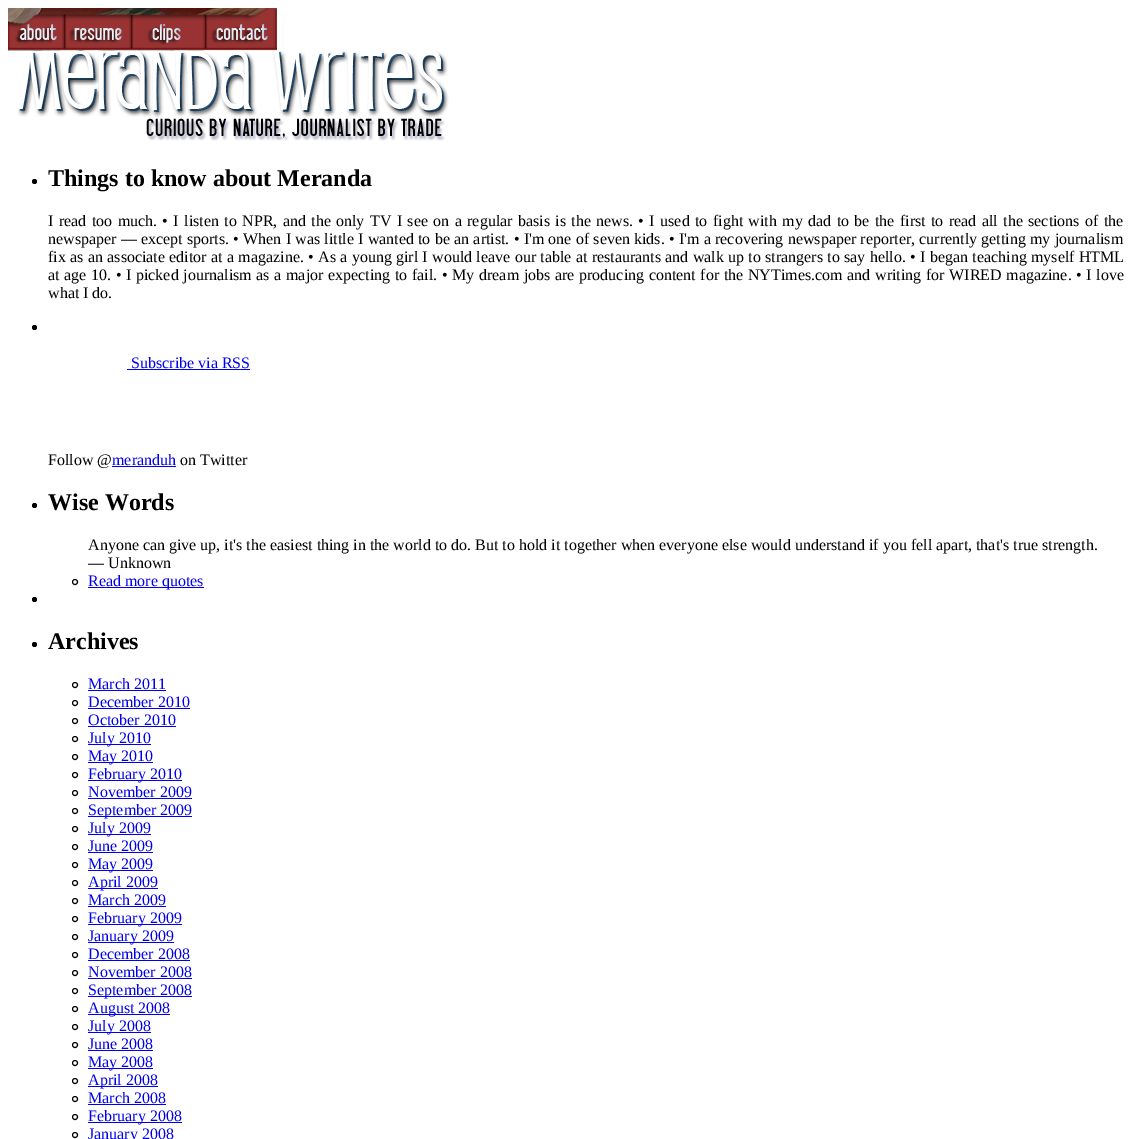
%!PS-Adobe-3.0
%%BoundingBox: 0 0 1132 1139
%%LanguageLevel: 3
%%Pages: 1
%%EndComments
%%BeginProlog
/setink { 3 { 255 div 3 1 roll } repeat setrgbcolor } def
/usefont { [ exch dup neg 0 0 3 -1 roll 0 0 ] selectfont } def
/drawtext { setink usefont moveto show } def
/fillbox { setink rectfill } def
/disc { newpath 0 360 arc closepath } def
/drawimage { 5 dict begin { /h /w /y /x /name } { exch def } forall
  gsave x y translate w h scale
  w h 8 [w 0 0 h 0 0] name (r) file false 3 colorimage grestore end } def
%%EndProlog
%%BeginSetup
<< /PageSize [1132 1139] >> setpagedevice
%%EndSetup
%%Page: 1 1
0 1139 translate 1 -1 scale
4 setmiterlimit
0 0 1132 1139 255 255 255 fillbox
(assets/img1.rgb) 8 8 57 43 drawimage
(assets/img2.rgb) 65 8 67 43 drawimage
(assets/img3.rgb) 132 8 73 43 drawimage
(assets/img4.rgb) 205 8 72 43 drawimage
(assets/img5.rgb) 17 51 432 90 drawimage
0 0 0 setink
34.5 181.5 2.5 disc fill
(Things to know about Meranda) 48 186 /LiberationSerif-Bold 24 0 0 0 drawtext
/LiberationSerif-Regular 16 usefont
48 226 moveto 1.4 0 32 (I read too much. • I listen to NPR, and the only TV I see on a regular basis is the news. • I used to fight with my dad to be the first to read all the sections of the) widthshow
48 244 moveto 0.25 0 32 (newspaper — except sports. • When I was little I wanted to be an artist. • I'm one of seven kids. • I'm a recovering newspaper reporter, currently getting my journalism) widthshow
48 262 moveto 0.35 0 32 (fix as an associate editor at a magazine. • As a young girl I would leave our table at restaurants and walk up to strangers to say hello. • I began teaching myself HTML) widthshow
48 280 moveto 0.65 0 32 (at age 10. • I picked journalism as a major expecting to fail. • My dream jobs are producing content for the NYTimes.com and writing for WIRED magazine. • I love) widthshow
(what I do.) 48 298 /LiberationSerif-Regular 16 0 0 0 drawtext
34.5 327.5 2.5 disc fill
(Subscribe via RSS) 131 368 /LiberationSerif-Regular 16 0 0 238 drawtext
127 369 123 1 0 0 238 fillbox
(Follow @) 48 465 /LiberationSerif-Regular 16 0 0 0 drawtext
(meranduh) 112 465 /LiberationSerif-Regular 16 0 0 238 drawtext
112 466 64 1 0 0 238 fillbox
(on Twitter) 180 465 /LiberationSerif-Regular 16 0 0 0 drawtext
34.5 505.5 2.5 disc fill
(Wise Words) 48 510 /LiberationSerif-Bold 24 0 0 0 drawtext
(Anyone can give up, it's the easiest thing in the world to do. But to hold it together when everyone else would understand if you fell apart, that's true strength.) 88 550 /LiberationSerif-Regular 16 0 0 0 drawtext
(— Unknown) 88 568 /LiberationSerif-Regular 16 0 0 0 drawtext
75 582 2.5 disc stroke
88 587 116 1 0 0 238 fillbox
(Read more quotes) 88 586 /LiberationSerif-Regular 16 0 0 238 drawtext
0 0 0 setink
34.5 599.5 2.5 disc fill
34.5 644.5 2.5 disc fill
(Archives) 48 649 /LiberationSerif-Bold 24 0 0 0 drawtext
75 685 2.5 disc stroke
(March 2011) 88 689 /LiberationSerif-Regular 16 0 0 238 drawtext
88 690 78 1 0 0 238 fillbox
0 0 0 setink
75 703 2.5 disc stroke
(December 2010) 88 707 /LiberationSerif-Regular 16 0 0 238 drawtext
88 708 102 1 0 0 238 fillbox
0 0 0 setink
75 721 2.5 disc stroke
(October 2010) 88 725 /LiberationSerif-Regular 16 0 0 238 drawtext
88 726 88 1 0 0 238 fillbox
0 0 0 setink
75 739 2.5 disc stroke
88 744 63 1 0 0 238 fillbox
(July 2010) 88 743 /LiberationSerif-Regular 16 0 0 238 drawtext
0 0 0 setink
75 757 2.5 disc stroke
88 762 65 1 0 0 238 fillbox
(May 2010) 88 761 /LiberationSerif-Regular 16 0 0 238 drawtext
0 0 0 setink
75 775 2.5 disc stroke
88 780 94 1 0 0 238 fillbox
(February 2010) 88 779 /LiberationSerif-Regular 16 0 0 238 drawtext
0 0 0 setink
75 793 2.5 disc stroke
(November 2009) 88 797 /LiberationSerif-Regular 16 0 0 238 drawtext
88 798 104 1 0 0 238 fillbox
0 0 0 setink
75 811 2.5 disc stroke
88 816 104 1 0 0 238 fillbox
(September 2009) 88 815 /LiberationSerif-Regular 16 0 0 238 drawtext
0 0 0 setink
75 829 2.5 disc stroke
88 834 63 1 0 0 238 fillbox
(July 2009) 88 833 /LiberationSerif-Regular 16 0 0 238 drawtext
0 0 0 setink
75 847 2.5 disc stroke
(June 2009) 88 851 /LiberationSerif-Regular 16 0 0 238 drawtext
88 852 65 1 0 0 238 fillbox
0 0 0 setink
75 865 2.5 disc stroke
88 870 65 1 0 0 238 fillbox
(May 2009) 88 869 /LiberationSerif-Regular 16 0 0 238 drawtext
0 0 0 setink
75 883 2.5 disc stroke
88 888 70 1 0 0 238 fillbox
(April 2009) 88 887 /LiberationSerif-Regular 16 0 0 238 drawtext
0 0 0 setink
75 901 2.5 disc stroke
(March 2009) 88 905 /LiberationSerif-Regular 16 0 0 238 drawtext
88 906 78 1 0 0 238 fillbox
0 0 0 setink
75 919 2.5 disc stroke
88 924 94 1 0 0 238 fillbox
(February 2009) 88 923 /LiberationSerif-Regular 16 0 0 238 drawtext
0 0 0 setink
75 937 2.5 disc stroke
88 942 86 1 0 0 238 fillbox
(January 2009) 88 941 /LiberationSerif-Regular 16 0 0 238 drawtext
0 0 0 setink
75 955 2.5 disc stroke
(December 2008) 88 959 /LiberationSerif-Regular 16 0 0 238 drawtext
88 960 102 1 0 0 238 fillbox
0 0 0 setink
75 973 2.5 disc stroke
(November 2008) 88 977 /LiberationSerif-Regular 16 0 0 238 drawtext
88 978 104 1 0 0 238 fillbox
0 0 0 setink
75 991 2.5 disc stroke
88 996 104 1 0 0 238 fillbox
(September 2008) 88 995 /LiberationSerif-Regular 16 0 0 238 drawtext
0 0 0 setink
75 1009 2.5 disc stroke
88 1014 82 1 0 0 238 fillbox
(August 2008) 88 1013 /LiberationSerif-Regular 16 0 0 238 drawtext
0 0 0 setink
75 1027 2.5 disc stroke
88 1032 63 1 0 0 238 fillbox
(July 2008) 88 1031 /LiberationSerif-Regular 16 0 0 238 drawtext
0 0 0 setink
75 1045 2.5 disc stroke
(June 2008) 88 1049 /LiberationSerif-Regular 16 0 0 238 drawtext
88 1050 65 1 0 0 238 fillbox
0 0 0 setink
75 1063 2.5 disc stroke
88 1068 65 1 0 0 238 fillbox
(May 2008) 88 1067 /LiberationSerif-Regular 16 0 0 238 drawtext
0 0 0 setink
75 1081 2.5 disc stroke
88 1086 70 1 0 0 238 fillbox
(April 2008) 88 1085 /LiberationSerif-Regular 16 0 0 238 drawtext
0 0 0 setink
75 1099 2.5 disc stroke
(March 2008) 88 1103 /LiberationSerif-Regular 16 0 0 238 drawtext
88 1104 78 1 0 0 238 fillbox
0 0 0 setink
75 1117 2.5 disc stroke
88 1122 94 1 0 0 238 fillbox
(February 2008) 88 1121 /LiberationSerif-Regular 16 0 0 238 drawtext
0 0 0 setink
75 1135 2.5 disc stroke
(January 2008) 88 1139 /LiberationSerif-Regular 16 0 0 238 drawtext
showpage
%%EOF
